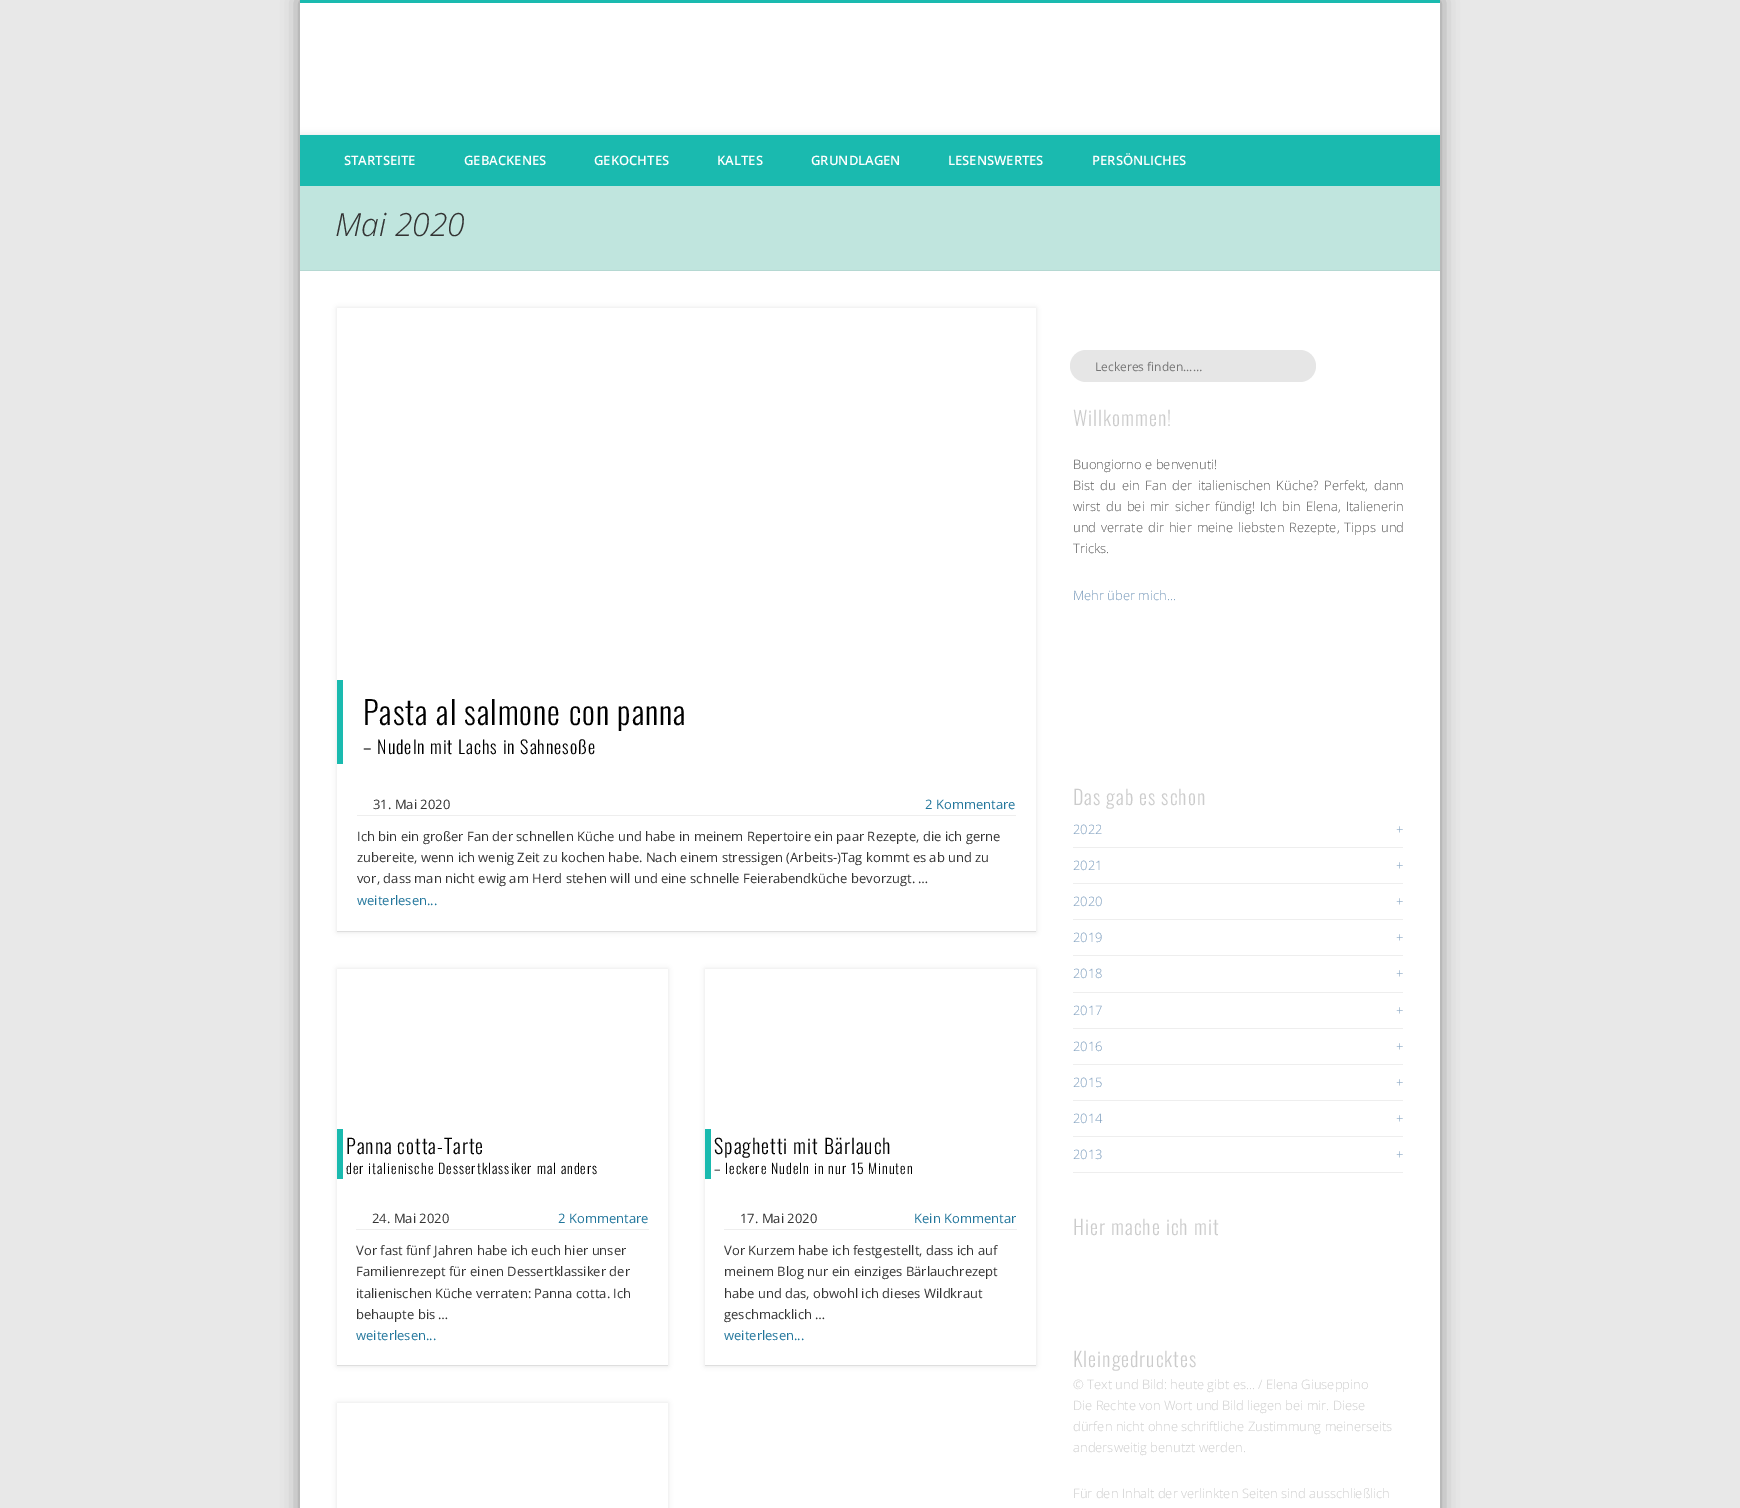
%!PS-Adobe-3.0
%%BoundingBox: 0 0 1740 1508
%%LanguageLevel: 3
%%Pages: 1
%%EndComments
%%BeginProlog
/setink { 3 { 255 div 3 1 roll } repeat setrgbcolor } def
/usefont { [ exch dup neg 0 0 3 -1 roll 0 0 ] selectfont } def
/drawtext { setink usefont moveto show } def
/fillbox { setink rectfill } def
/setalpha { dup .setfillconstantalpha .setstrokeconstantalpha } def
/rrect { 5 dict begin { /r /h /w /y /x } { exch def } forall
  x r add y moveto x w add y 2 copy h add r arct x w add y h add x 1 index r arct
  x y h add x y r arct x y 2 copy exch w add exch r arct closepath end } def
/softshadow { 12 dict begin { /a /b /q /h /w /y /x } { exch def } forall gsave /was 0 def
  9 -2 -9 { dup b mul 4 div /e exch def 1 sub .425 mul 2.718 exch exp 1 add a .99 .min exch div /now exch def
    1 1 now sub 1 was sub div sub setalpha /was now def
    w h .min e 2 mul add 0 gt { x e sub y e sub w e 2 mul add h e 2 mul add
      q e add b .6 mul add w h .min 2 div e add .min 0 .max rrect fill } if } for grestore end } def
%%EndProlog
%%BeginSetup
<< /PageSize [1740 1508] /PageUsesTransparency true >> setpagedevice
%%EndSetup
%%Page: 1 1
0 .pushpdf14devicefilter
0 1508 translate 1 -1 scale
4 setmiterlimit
0 0 1740 1508 232 232 232 fillbox
0 0 0 setink
300 0 1140 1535 0 9 0.4 softshadow
300 3 1140 1505 255 255 255 fillbox
300 0 1140 3 26 186 175 fillbox
gsave
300 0 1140 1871 rectclip
0 0 0 setink
300 135 1140 51 0 3.5 0.1 softshadow
grestore
300 135 1140 51 26 186 175 fillbox
(STARTSEITE) 344 165 /OpenSans-SemiBold 13 255 255 255 drawtext
(GEBACKENES) 464 165 /OpenSans-SemiBold 13 255 255 255 drawtext
(GEKOCHTES) 594 165 /OpenSans-SemiBold 13 255 255 255 drawtext
(KALTES) 717 165 /OpenSans-SemiBold 13 255 255 255 drawtext
(GRUNDLAGEN) 811 165 /OpenSans-SemiBold 13 255 255 255 drawtext
(LESENSWERTES) 948 165 /OpenSans-SemiBold 13 255 255 255 drawtext
(PERSÖNLICHES) 1092 165 /OpenSans-SemiBold 13 255 255 255 drawtext
300 186 1140 84 192 229 222 fillbox
300 270 1140 1 181 216 210 fillbox
(Mai 2020) 335 236 /OpenSans-LightItalic 32 51 51 51 drawtext
gsave
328 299 moveto 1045 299 lineto 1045 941 lineto 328 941 lineto closepath 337 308 moveto 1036 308 lineto 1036 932 lineto 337 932 lineto closepath eoclip newpath
0 0 0 setink
337 308 699 624 0 2.5 0.1 softshadow
grestore
337 931 699 1 222 222 222 fillbox
337 680 6 84 26 186 175 fillbox
/Oswald-Light 32 usefont
0 0 0 setink
363 725 moveto 1 0 (Pasta al salmone con panna) ashow
/Oswald-Light 18 usefont
363 754 moveto 1 0 (– Nudeln mit Lachs in Sahnesoße) ashow
357 815 659 1 238 238 238 fillbox
(31. Mai 2020) 373 809 /OpenSans-Regular 13 51 51 51 drawtext
(2 Kommentare) 925 809 /OpenSans-Regular 13 33 117 155 drawtext
(Ich bin ein großer Fan der schnellen Küche und habe in meinem Repertoire ein paar Rezepte, die ich gerne) 357 841 /OpenSans-Regular 13 51 51 51 drawtext
(zubereite, wenn ich wenig Zeit zu kochen habe. Nach einem stressigen \(Arbeits-\)Tag kommt es ab und zu) 357 862 /OpenSans-Regular 13 51 51 51 drawtext
(vor, dass man nicht ewig am Herd stehen will und eine schnelle Feierabendküche bevorzugt. …) 357 883 /OpenSans-Regular 13 51 51 51 drawtext
(weiterlesen...) 357 905 /OpenSans-Regular 13 33 117 155 drawtext
gsave
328 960 moveto 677 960 lineto 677 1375 lineto 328 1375 lineto closepath 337 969 moveto 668 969 lineto 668 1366 lineto 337 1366 lineto closepath eoclip newpath
0 0 0 setink
337 969 331 397 0 2.5 0.1 softshadow
grestore
337 1365 331 1 222 222 222 fillbox
337 1129 6 50 26 186 175 fillbox
/Oswald-Light 20 usefont
0 0 0 setink
346 1154 moveto 1 0 (Panna cotta-Tarte) ashow
/Oswald-Light 14 usefont
346 1174 moveto 1 0 (der italienische Dessertklassiker mal anders) ashow
356 1229 293 1 238 238 238 fillbox
(24. Mai 2020) 372 1223 /OpenSans-Regular 13 51 51 51 drawtext
(2 Kommentare) 558 1223 /OpenSans-Regular 13 33 117 155 drawtext
(Vor fast fünf Jahren habe ich euch hier unser) 356 1255 /OpenSans-Regular 13 51 51 51 drawtext
(Familienrezept für einen Dessertklassiker der) 356 1276 /OpenSans-Regular 13 51 51 51 drawtext
(italienischen Küche verraten: Panna cotta. Ich) 356 1298 /OpenSans-Regular 13 51 51 51 drawtext
(behaupte bis …) 356 1319 /OpenSans-Regular 13 51 51 51 drawtext
(weiterlesen...) 356 1340 /OpenSans-Regular 13 33 117 155 drawtext
gsave
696 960 moveto 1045 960 lineto 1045 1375 lineto 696 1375 lineto closepath 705 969 moveto 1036 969 lineto 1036 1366 lineto 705 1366 lineto closepath eoclip newpath
0 0 0 setink
705 969 331 397 0 2.5 0.1 softshadow
grestore
705 1365 331 1 222 222 222 fillbox
705 1129 6 50 26 186 175 fillbox
/Oswald-Light 20 usefont
0 0 0 setink
714 1154 moveto 1 0 (Spaghetti mit Bärlauch) ashow
/Oswald-Light 14 usefont
714 1174 moveto 1 0 (– leckere Nudeln in nur 15 Minuten) ashow
724 1229 293 1 238 238 238 fillbox
(17. Mai 2020) 740 1223 /OpenSans-Regular 13 51 51 51 drawtext
(Kein Kommentar) 914 1223 /OpenSans-Regular 13 33 117 155 drawtext
(Vor Kurzem habe ich festgestellt, dass ich auf) 724 1255 /OpenSans-Regular 13 51 51 51 drawtext
(meinem Blog nur ein einziges Bärlauchrezept) 724 1276 /OpenSans-Regular 13 51 51 51 drawtext
(habe und das, obwohl ich dieses Wildkraut) 724 1298 /OpenSans-Regular 13 51 51 51 drawtext
(geschmacklich …) 724 1319 /OpenSans-Regular 13 51 51 51 drawtext
(weiterlesen...) 724 1340 /OpenSans-Regular 13 33 117 155 drawtext
gsave
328 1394 moveto 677 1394 lineto 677 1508 lineto 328 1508 lineto closepath 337 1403 moveto 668 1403 lineto 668 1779 lineto 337 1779 lineto closepath eoclip newpath
0 0 0 setink
337 1403 331 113 0 2.5 0.1 softshadow
grestore
230 230 230 setink
1070 350 246 32 16 rrect fill
(Leckeres finden...…) 1095 371 /OpenSans-Regular 12 117 117 117 drawtext
/Oswald-Light 20 usefont
204 204 204 setink
1073 426 moveto 1 0 (Willkommen!) ashow
(Buongiorno e benvenuti!) 1073 469 /OpenSans-Light 13 85 85 85 drawtext
1073 490 moveto 2.5 0 32 (Bist du ein Fan der italienischen Küche? Perfekt, dann) widthshow
1073 511 moveto 1.9 0 32 (wirst du bei mir sicher fündig! Ich bin Elena, Italienerin) widthshow
1073 532 moveto 1.75 0 32 (und verrate dir hier meine liebsten Rezepte, Tipps und) widthshow
(Tricks.) 1073 553 /OpenSans-Light 13 85 85 85 drawtext
(Mehr über mich...) 1073 600 /OpenSans-Light 13 117 151 185 drawtext
/Oswald-Light 20 usefont
204 204 204 setink
1073 805 moveto 1 0 (Das gab es schon) ashow
1073 847 330 1 238 238 238 fillbox
(2022) 1073 834 /OpenSans-Light 13 117 151 185 drawtext
(+) 1396 834 /OpenSans-Light 13 117 151 185 drawtext
1073 883 330 1 238 238 238 fillbox
(2021) 1073 870 /OpenSans-Light 13 117 151 185 drawtext
(+) 1396 870 /OpenSans-Light 13 117 151 185 drawtext
1073 919 330 1 238 238 238 fillbox
(2020) 1073 906 /OpenSans-Light 13 117 151 185 drawtext
(+) 1396 906 /OpenSans-Light 13 117 151 185 drawtext
1073 955 330 1 238 238 238 fillbox
(2019) 1073 942 /OpenSans-Light 13 117 151 185 drawtext
(+) 1396 942 /OpenSans-Light 13 117 151 185 drawtext
1073 992 330 1 238 238 238 fillbox
(2018) 1073 978 /OpenSans-Light 13 117 151 185 drawtext
(+) 1396 978 /OpenSans-Light 13 117 151 185 drawtext
1073 1028 330 1 238 238 238 fillbox
(2017) 1073 1015 /OpenSans-Light 13 117 151 185 drawtext
(+) 1396 1015 /OpenSans-Light 13 117 151 185 drawtext
1073 1064 330 1 238 238 238 fillbox
(2016) 1073 1051 /OpenSans-Light 13 117 151 185 drawtext
(+) 1396 1051 /OpenSans-Light 13 117 151 185 drawtext
1073 1100 330 1 238 238 238 fillbox
(2015) 1073 1087 /OpenSans-Light 13 117 151 185 drawtext
(+) 1396 1087 /OpenSans-Light 13 117 151 185 drawtext
1073 1136 330 1 238 238 238 fillbox
(2014) 1073 1123 /OpenSans-Light 13 117 151 185 drawtext
(+) 1396 1123 /OpenSans-Light 13 117 151 185 drawtext
1073 1172 330 1 238 238 238 fillbox
(2013) 1073 1159 /OpenSans-Light 13 117 151 185 drawtext
(+) 1396 1159 /OpenSans-Light 13 117 151 185 drawtext
/Oswald-Light 20 usefont
204 204 204 setink
1073 1235 moveto 1 0 (Hier mache ich mit) ashow
1073 1367 moveto 1 0 (Kleingedrucktes) ashow
(© Text und Bild: heute gibt es... / Elena Giuseppino) 1073 1389 /OpenSans-Light 13 204 204 204 drawtext
(Die Rechte von Wort und Bild liegen bei mir. Diese) 1073 1410 /OpenSans-Light 13 204 204 204 drawtext
(dürfen nicht ohne schriftliche Zustimmung meinerseits) 1073 1431 /OpenSans-Light 13 204 204 204 drawtext
(andersweitig benutzt werden.) 1073 1452 /OpenSans-Light 13 204 204 204 drawtext
(Für den Inhalt der verlinkten Seiten sind ausschließlich) 1073 1498 /OpenSans-Light 13 204 204 204 drawtext
.poppdf14devicefilter showpage
%%EOF
